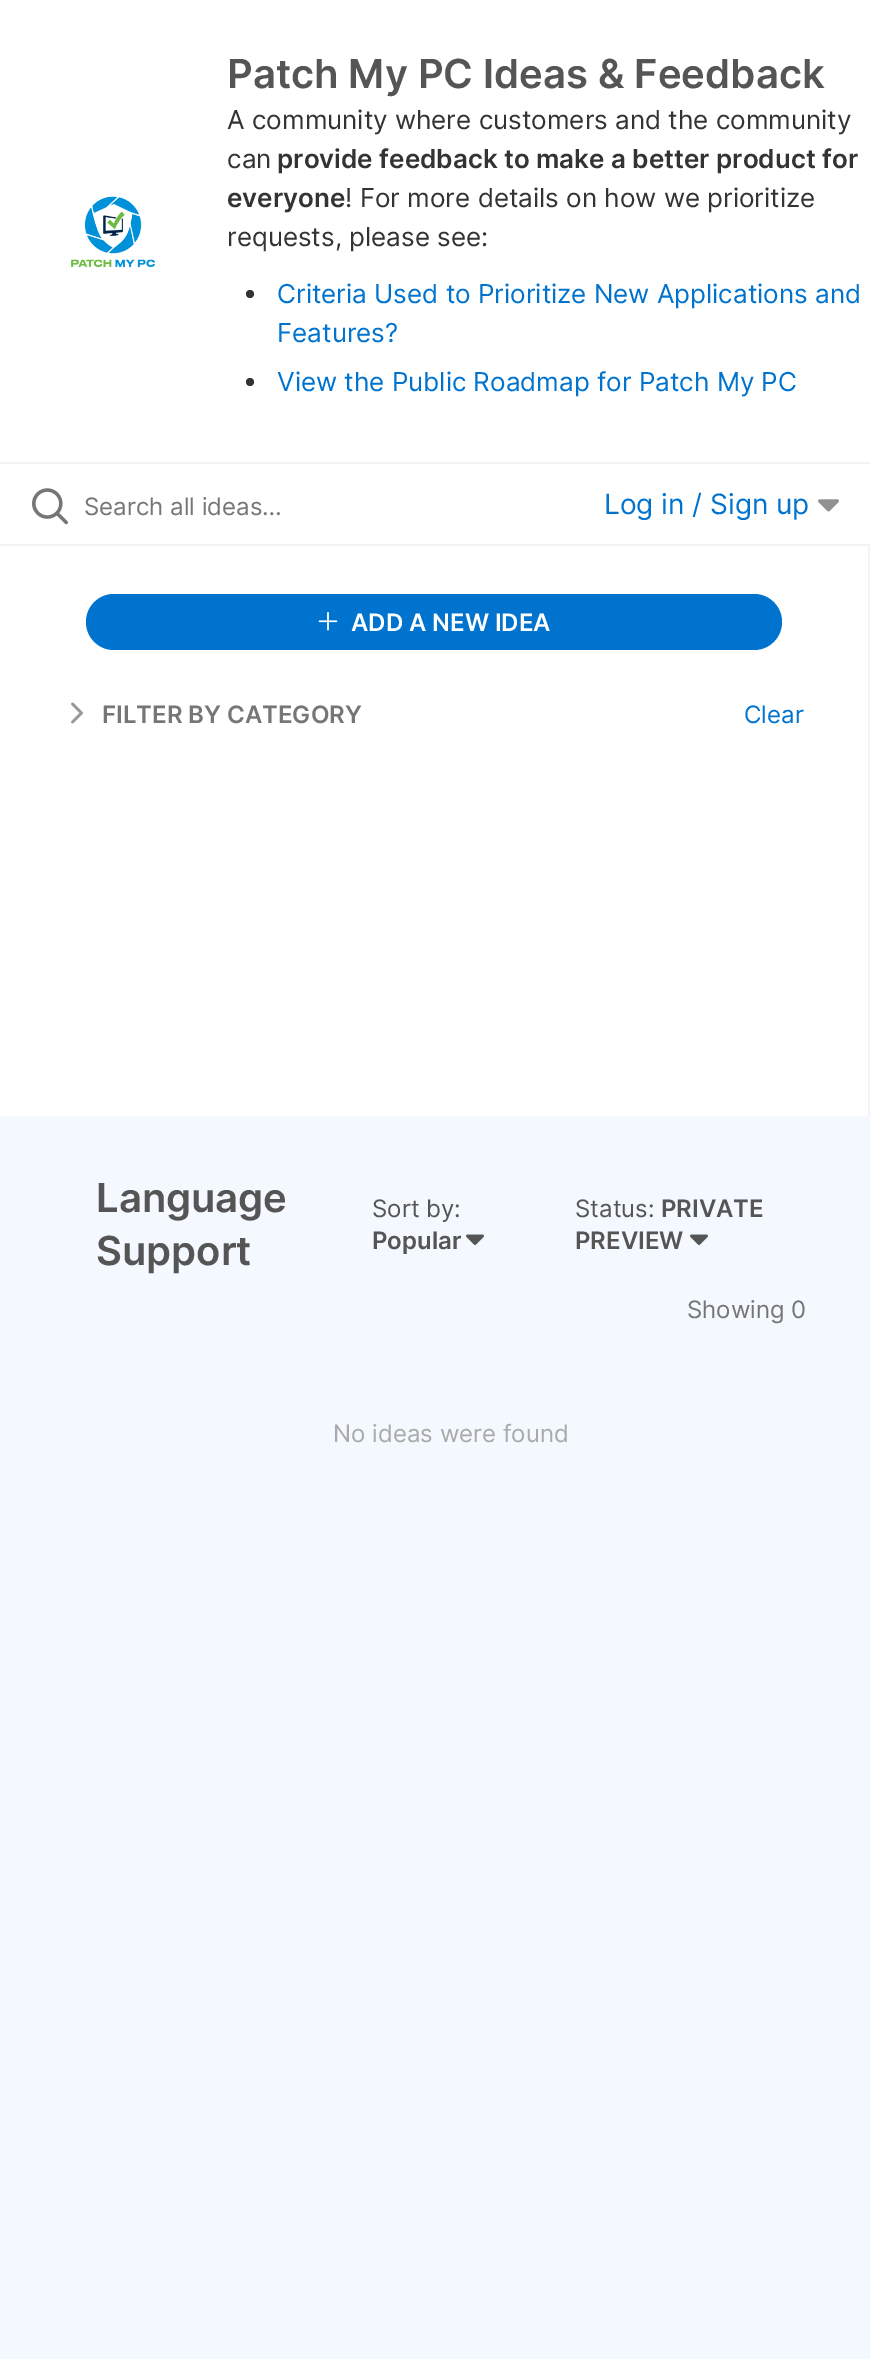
%!PS-Adobe-3.0
%%BoundingBox: 0 0 870 2359
%%LanguageLevel: 3
%%Pages: 1
%%EndComments
%%BeginProlog
/setink { 3 { 255 div 3 1 roll } repeat setrgbcolor } def
/usefont { [ exch dup neg 0 0 3 -1 roll 0 0 ] selectfont } def
/drawtext { setink usefont moveto show } def
/fillbox { setink rectfill } def
/disc { newpath 0 360 arc closepath } def
/rrect { 5 dict begin { /r /h /w /y /x } { exch def } forall
  x r add y moveto x w add y 2 copy h add r arct x w add y h add x 1 index r arct
  x y h add x y r arct x y 2 copy exch w add exch r arct closepath end } def
/drawimage { 5 dict begin { /h /w /y /x /name } { exch def } forall
  gsave x y translate w h scale
  w h 8 [w 0 0 h 0 0] name (r) file false 3 colorimage grestore end } def
%%EndProlog
%%BeginSetup
<< /PageSize [870 2359] >> setpagedevice
%%EndSetup
%%Page: 1 1
0 2359 translate 1 -1 scale
4 setmiterlimit
0 0 870 2359 243 249 254 fillbox
0 0 870 462 255 255 255 fillbox
0 462 870 2 244 244 244 fillbox
(assets/img1.rgb) 71 196 84 72 drawimage
(Patch My PC Ideas & Feedback) 227 88 /Inter-SemiBold 40 85 85 85 drawtext
(A community where customers and the community) 227 129 /Inter-Regular 26 51 51 51 drawtext
(can) 227 168 /Inter-Regular 26 51 51 51 drawtext
(provide feedback to make a better product for) 277 168 /Inter-SemiBold 26 51 51 51 drawtext
(everyone) 227 207 /Inter-SemiBold 26 51 51 51 drawtext
(! For more details on how we prioritize) 345 207 /Inter-Regular 26 51 51 51 drawtext
(requests, please see:) 227 246 /Inter-Regular 26 51 51 51 drawtext
250 294 4 disc fill
(Criteria Used to Prioritize New Applications and) 277 303 /Inter-Regular 26 0 115 207 drawtext
(Features?) 277 342 /Inter-Regular 26 0 115 207 drawtext
51 51 51 setink
250 382 4 disc fill
(View the Public Roadmap for Patch My PC) 277 391 /Inter-Regular 26 0 115 207 drawtext
0 464 870 80 255 255 255 fillbox
0 544 870 2 244 244 244 fillbox
(assets/img2.rgb) 32 488 36 37 drawimage
(Search all ideas…) 84 515 /Inter-Regular 24 118 118 118 drawtext
(Log in / Sign up) 604 514 /Inter-Regular 28 0 115 207 drawtext
(assets/img3.rgb) 818 499 21 13 drawimage
0 546 868 570 255 255 255 fillbox
868 546 2 570 244 244 244 fillbox
0 115 207 setink
86 594 696 56 28 rrect fill
(assets/img4.rgb) 318 612 20 19 drawimage
(ADD A NEW IDEA) 351 631 /Inter-SemiBold 24 255 255 255 drawtext
(assets/img5.rgb) 71 702 12 22 drawimage
(FILTER BY CATEGORY) 102 723 /Inter-SemiBold 24 118 118 118 drawtext
(Clear) 744 723 /Inter-Regular 24 0 115 207 drawtext
(Language) 96 1212 /Inter-SemiBold 40 85 85 85 drawtext
(Support) 96 1265 /Inter-SemiBold 40 85 85 85 drawtext
(Sort by:) 372 1217 /Inter-Regular 24 85 85 85 drawtext
(Popular) 372 1249 /Inter-SemiBold 24 85 85 85 drawtext
(assets/img6.rgb) 466 1234 18 11 drawimage
(Status:) 575 1217 /Inter-Regular 24 85 85 85 drawtext
(PRIVATE) 661 1217 /Inter-SemiBold 24 85 85 85 drawtext
(PREVIEW) 575 1249 /Inter-SemiBold 24 85 85 85 drawtext
(assets/img6.rgb) 690 1234 18 11 drawimage
(Showing 0) 687 1318 /Inter-Regular 24 118 118 118 drawtext
(No ideas were found) 333 1442 /Inter-Regular 24 170 170 170 drawtext
showpage
%%EOF
